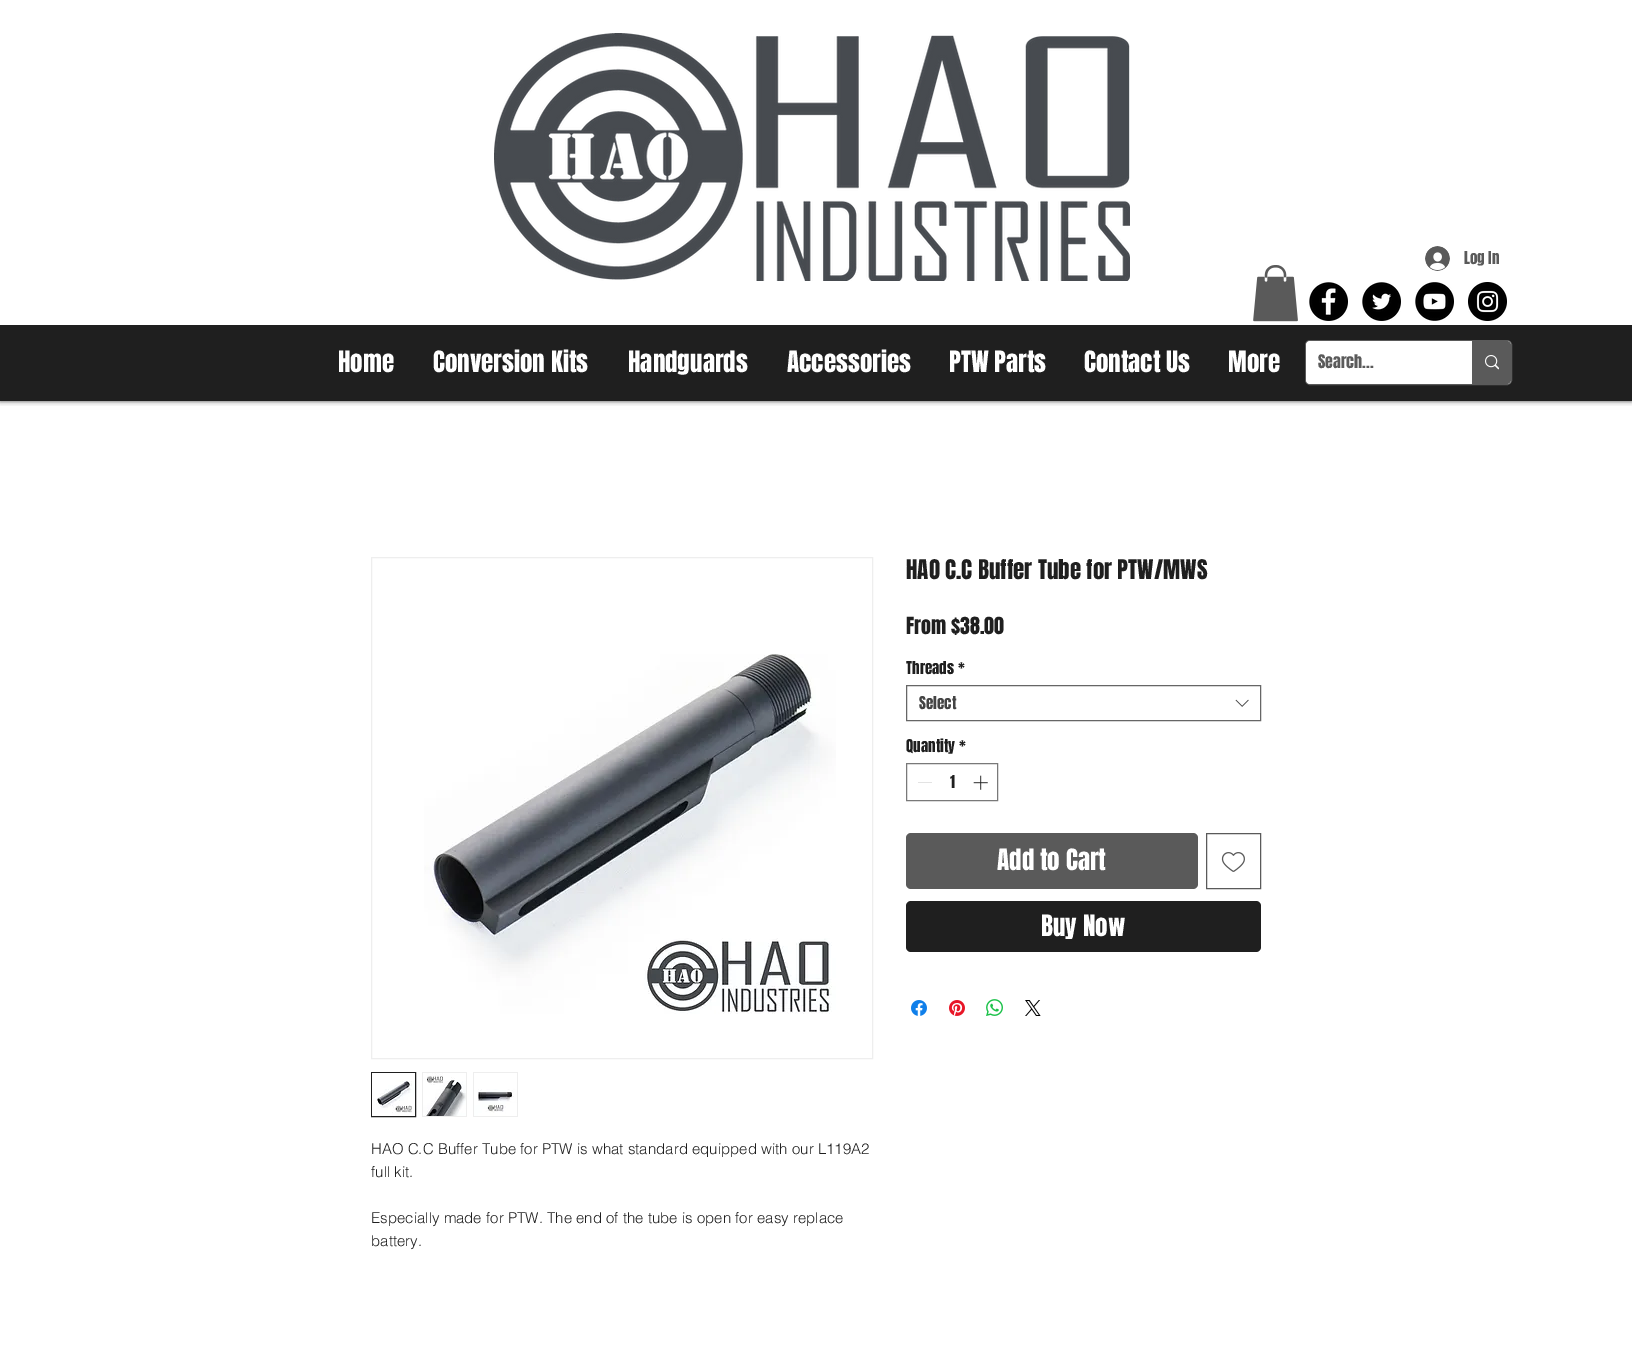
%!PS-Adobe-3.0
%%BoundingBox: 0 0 1632 1349
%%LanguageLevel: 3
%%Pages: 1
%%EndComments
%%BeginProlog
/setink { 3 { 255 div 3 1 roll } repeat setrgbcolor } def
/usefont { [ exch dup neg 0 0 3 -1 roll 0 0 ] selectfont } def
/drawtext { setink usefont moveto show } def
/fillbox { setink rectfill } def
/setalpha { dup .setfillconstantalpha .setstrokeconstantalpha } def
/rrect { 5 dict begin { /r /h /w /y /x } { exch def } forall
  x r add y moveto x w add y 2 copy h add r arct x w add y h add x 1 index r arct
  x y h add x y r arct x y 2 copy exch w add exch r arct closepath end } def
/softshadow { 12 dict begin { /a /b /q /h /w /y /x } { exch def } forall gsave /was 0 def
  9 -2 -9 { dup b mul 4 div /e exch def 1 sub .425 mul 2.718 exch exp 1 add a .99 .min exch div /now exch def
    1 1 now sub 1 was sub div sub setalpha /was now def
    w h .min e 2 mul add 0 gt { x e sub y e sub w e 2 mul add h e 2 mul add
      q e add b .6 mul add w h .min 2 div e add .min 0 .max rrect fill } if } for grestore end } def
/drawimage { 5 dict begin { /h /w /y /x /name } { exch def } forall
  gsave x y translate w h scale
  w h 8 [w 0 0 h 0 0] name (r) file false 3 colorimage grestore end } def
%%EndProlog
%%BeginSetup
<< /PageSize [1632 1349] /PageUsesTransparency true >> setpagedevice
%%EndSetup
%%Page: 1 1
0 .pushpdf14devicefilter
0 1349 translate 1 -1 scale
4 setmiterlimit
0 0 1632 1349 255 255 255 fillbox
gsave
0 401 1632 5 rectclip
0 0 0 setink
0 0 1632 401 0 2.5 0.7 softshadow
grestore
(assets/img1.rgb) 494 33 636 248 drawimage
(assets/img2.rgb) 1425 246 25 25 drawimage
(Log In) 1464 264 /Anton-Regular 15 90 90 90 drawtext
(assets/img3.rgb) 1253 265 45 57 drawimage
0 325 1632 76 31 31 31 fillbox
(Home) 338 372 /Anton-Regular 25 255 255 255 drawtext
(Conversion Kits) 433 372 /Anton-Regular 25 255 255 255 drawtext
(Handguards) 628 372 /Anton-Regular 25 255 255 255 drawtext
(Accessories) 787 372 /Anton-Regular 25 255 255 255 drawtext
(PTW Parts) 949 372 /Anton-Regular 25 255 255 255 drawtext
(Contact Us) 1084 372 /Anton-Regular 25 255 255 255 drawtext
(More) 1228 372 /Anton-Regular 25 255 255 255 drawtext
90 90 90 setink
1305.5 340.5 206 44 4.5 rrect stroke
255 255 255 setink
1306 341 205 43 4 rrect fill
(Search...) 1318 368 /Anton-Regular 16 90 90 90 drawtext
1472 341 moveto 1507 341 lineto 1509 341 1511 343 1511 345 curveto 1511 380 lineto 1511 382 1509 384 1507 384 curveto 1472 384 lineto closepath fill
(assets/img4.rgb) 1485 355 14 15 drawimage
(assets/img5.rgb) 1309 282 39 39 drawimage
(assets/img6.rgb) 1362 282 39 39 drawimage
(assets/img7.rgb) 1415 282 39 39 drawimage
(assets/img8.rgb) 1468 282 39 39 drawimage
(HAO C.C Buffer Tube for PTW/MWS) 906 579 /Anton-Regular 23 31 31 31 drawtext
(From $38.00) 906 634 /Anton-Regular 20 31 31 31 drawtext
(Threads) 906 674 /Anton-Regular 15 31 31 31 drawtext
(*) 958 674 /Anton-Regular 15 31 31 31 drawtext
102 102 102 setink
906.5 685.5 354 35 rectstroke
(Select) 919 709 /Anton-Regular 15 68 68 68 drawtext
(assets/img9.rgb) 1235 699 14 8 drawimage
(Quantity) 906 752 /Anton-Regular 15 31 31 31 drawtext
(*) 959 752 /Anton-Regular 15 31 31 31 drawtext
121 121 121 setink
906.5 763.5 91 37 rectstroke
918 782 14 1 227 227 227 fillbox
(1) 950 788 /Anton-Regular 15 31 31 31 drawtext
(assets/img10.rgb) 973 775 15 15 drawimage
90 90 90 setink
906 833 292 56 5 rrect fill
(Add to Cart) 997 870 /Anton-Regular 25 255 255 255 drawtext
90 90 90 setink
1206.5 833.5 54 55 rectstroke
(assets/img11.rgb) 1221 852 24 20 drawimage
31 31 31 setink
906 901 355 51 5 rrect fill
(Buy Now) 1041 936 /Anton-Regular 25 255 255 255 drawtext
(assets/img12.rgb) 911 1000 16 16 drawimage
(assets/img13.rgb) 949 1000 16 16 drawimage
(assets/img14.rgb) 986 999 17 17 drawimage
(assets/img15.rgb) 1025 1000 16 16 drawimage
238 238 238 setink
371.5 557.5 501 501 rectstroke
(assets/img16.rgb) 424 654 412 360 drawimage
31 31 31 setink
371.5 1072.5 44 44 rectstroke
(assets/img17.rgb) 372 1073 43 43 drawimage
422 1072 45 45 238 238 238 fillbox
(assets/img18.rgb) 423 1073 43 43 drawimage
473 1072 45 45 238 238 238 fillbox
(assets/img19.rgb) 474 1073 43 43 drawimage
(HAO C.C Buffer Tube for PTW is what standard equipped with our L119A2) 371 1154 /helvetica-Light 15 31 31 31 drawtext
(full kit.) 371 1177 /helvetica-Light 15 31 31 31 drawtext
(Especially made for PTW. The end of the tube is open for easy replace) 371 1223 /helvetica-Light 15 31 31 31 drawtext
(battery.) 371 1246 /helvetica-Light 15 31 31 31 drawtext
.poppdf14devicefilter showpage
%%EOF
